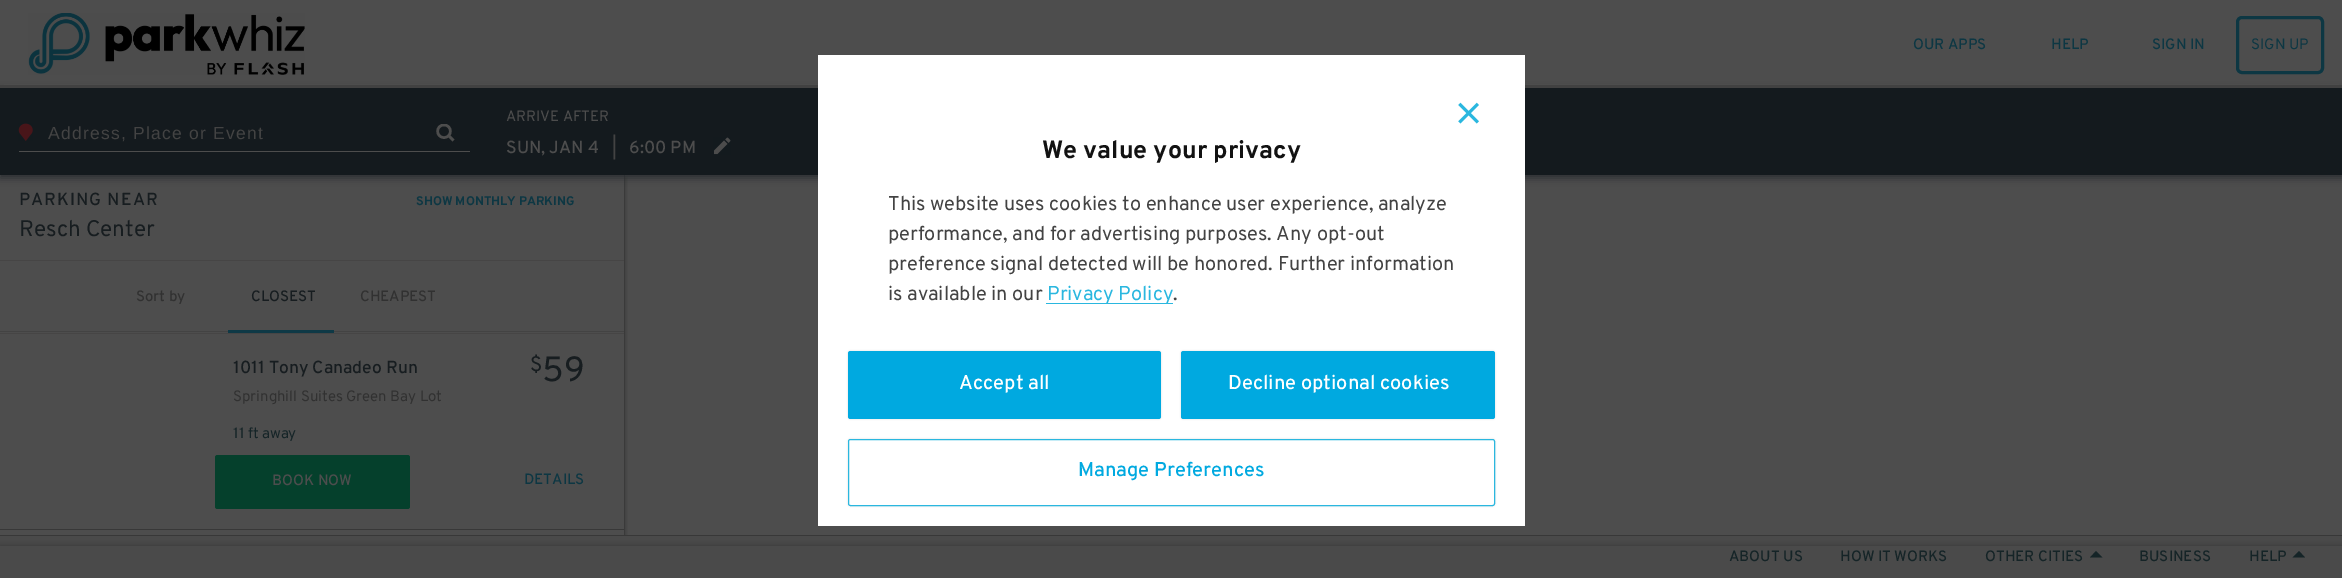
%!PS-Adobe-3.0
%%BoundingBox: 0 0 2342 578
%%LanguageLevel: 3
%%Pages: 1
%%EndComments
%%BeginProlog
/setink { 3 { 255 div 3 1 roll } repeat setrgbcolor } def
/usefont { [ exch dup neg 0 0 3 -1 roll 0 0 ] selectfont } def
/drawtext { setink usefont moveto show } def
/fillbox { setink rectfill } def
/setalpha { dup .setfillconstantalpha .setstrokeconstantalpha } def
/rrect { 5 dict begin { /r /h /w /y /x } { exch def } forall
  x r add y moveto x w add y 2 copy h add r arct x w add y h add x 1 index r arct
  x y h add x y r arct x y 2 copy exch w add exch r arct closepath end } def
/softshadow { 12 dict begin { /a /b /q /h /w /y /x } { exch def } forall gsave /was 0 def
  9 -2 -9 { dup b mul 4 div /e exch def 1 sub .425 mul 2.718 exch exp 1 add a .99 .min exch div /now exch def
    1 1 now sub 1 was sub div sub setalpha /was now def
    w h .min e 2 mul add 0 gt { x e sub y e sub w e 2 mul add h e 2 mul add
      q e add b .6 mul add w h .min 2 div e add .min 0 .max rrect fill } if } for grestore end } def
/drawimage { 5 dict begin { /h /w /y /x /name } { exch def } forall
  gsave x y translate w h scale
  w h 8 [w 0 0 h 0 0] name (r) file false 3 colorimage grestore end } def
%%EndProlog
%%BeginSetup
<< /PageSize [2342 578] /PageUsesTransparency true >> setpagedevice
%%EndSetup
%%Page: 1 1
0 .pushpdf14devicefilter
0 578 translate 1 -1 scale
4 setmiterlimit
0 0 2342 578 77 77 77 fillbox
gsave
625 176 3 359 rectclip
0 0 0 setink
0 178 625 360 0 2.5 0.24 softshadow
grestore
624 175 1 360 58 58 58 fillbox
40 44 47 setink
0 90 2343 88 0 4 1 softshadow
4 84 2335 1 77 77 77 fillbox
0 85 2342 3 65 65 65 fillbox
(assets/img1.rgb) 28 13 277 62 drawimage
(OUR APPS) 1913 49 /Overpass-Medium 15 13 55 67 drawtext
(HELP) 2051 49 /Overpass-Medium 15 13 55 67 drawtext
(SIGN IN) 2152 49 /Overpass-Medium 15 13 55 67 drawtext
3 setlinewidth
2237.5 17.5 85 55 4.5 rrect stroke
(SIGN UP) 2251 49 /Overpass-Regular 15 13 55 67 drawtext
0 88 2342 87 20 26 30 fillbox
19 151 14 1 77 77 77 fillbox
(assets/img2.rgb) 18 123 15 18 drawimage
gsave
436 124 19 19 rectclip
2.5 setlinewidth
1 setlinecap
453.5 140.5 moveto 449 136 lineto closepath 444 125 moveto 452.5 125 452.5 137.5 444 137.5 curveto 435.5 137.5 435.5 125 444 125 curveto closepath stroke
grestore
33 151 437 1 77 77 77 fillbox
/LiberationSans-Regular 17.5 usefont
67 67 67 setink
48 139 moveto 1.25 0 (Address, Place or Event) ashow
(ARRIVE AFTER) 506 121 /Overpass-Regular 15 77 77 77 drawtext
(SUN, JAN 4) 506 153 /Overpass-Medium 17.5 77 77 77 drawtext
(|) 612 153 /Overpass-Regular 17.5 67 67 67 drawtext
(6:00 PM) 629 153 /Overpass-Medium 17.5 77 77 77 drawtext
(assets/img3.rgb) 713 137 18 18 drawimage
0 260 624 1 70 69 69 fillbox
23 29 32 setink
19 205 moveto 1 0 (PARKING NEAR) ashow
(SHOW MONTHLY PARKING) 416 205 /Overpass-Bold 12.5 13 55 67 drawtext
(Resch Center) 19 236 /Overpass-Regular 22.5 23 29 32 drawtext
0 333 624 1 70 69 69 fillbox
0 331 624 1 67 67 67 fillbox
(Sort by) 136 301 /Overpass-Medium 15 49 49 49 drawtext
(CLOSEST) 251 301 /Overpass-Medium 15 23 29 32 drawtext
(CHEAPEST) 360 301 /Overpass-Medium 15 49 49 49 drawtext
228 330 106 3 14 57 70 fillbox
0 529 624 1 56 56 56 fillbox
(1011 Tony Canadeo Run) 233 373 /Overpass-Medium 17.5 23 29 32 drawtext
(Springhill Suites Green Bay Lot) 233 401 /Overpass-Regular 15 49 49 49 drawtext
(11 ft away) 233 438 /Overpass-Regular 15 21 36 39 drawtext
($) 530 371 /Overpass-Regular 21 23 29 32 drawtext
(59) 542 381 /Overpass-Regular 35 23 29 32 drawtext
5 64 44 setink
215 455 195 54 2.5 rrect fill
(BOOK NOW) 272 485 /Overpass-Medium 15 77 77 77 drawtext
(DETAILS) 524 484 /Overpass-Medium 15 13 55 67 drawtext
0 536 2342 10 74 74 74 fillbox
0 535 2342 1 56 56 56 fillbox
0 0 0 setink
0 546 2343 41 0 3 0.25 softshadow
0 546 2342 32 74 74 74 fillbox
(ABOUT US) 1729 561 /Overpass-Medium 15 21 36 39 drawtext
(HOW IT WORKS) 1840 561 /Overpass-Medium 15 21 36 39 drawtext
(OTHER CITIES) 1985 561 /Overpass-Medium 15 21 36 39 drawtext
2102.5 557.5 moveto 2090 557.5 lineto 2096 551 lineto closepath fill
(BUSINESS) 2139 561 /Overpass-Medium 15 21 36 39 drawtext
(HELP) 2249 561 /Overpass-Medium 15 21 36 39 drawtext
2305 557.5 moveto 2292.5 557.5 lineto 2299 551 lineto closepath fill
818 55 707 471 255 255 255 fillbox
(assets/img4.rgb) 1458 102 21 22 drawimage
(We value your privacy) 1042 158 /Overpass-Bold 25 18 18 18 drawtext
(This website uses cookies to enhance user experience, analyze) 888 210 /Overpass-Regular 20 67 67 67 drawtext
(performance, and for advertising purposes. Any opt-out) 888 240 /Overpass-Regular 20 67 67 67 drawtext
(preference signal detected will be honored. Further information) 888 270 /Overpass-Regular 20 67 67 67 drawtext
(is available in our) 888 300 /Overpass-Regular 20 67 67 67 drawtext
1046 303 127 1 42 183 223 fillbox
(Privacy Policy) 1047 300 /Overpass-Regular 20 42 183 223 drawtext
(.) 1173 300 /Overpass-Regular 20 67 67 67 drawtext
0 0 0 setink
848 351 313 68 2.5 1 0.12 softshadow
0 169 224 setink
848 351 313 68 2.5 rrect fill
(Accept all) 959 389 /Overpass-Medium 20 255 255 255 drawtext
0 0 0 setink
1181 351 314 68 2.5 1 0.12 softshadow
0 169 224 setink
1181 351 314 68 2.5 rrect fill
(Decline optional cookies) 1228 389 /Overpass-Medium 20 255 255 255 drawtext
gsave
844 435 moveto 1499 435 lineto 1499 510 lineto 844 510 lineto closepath 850.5 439 moveto 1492.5 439 lineto 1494 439 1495 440 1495 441.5 curveto 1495 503.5 lineto 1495 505 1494 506 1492.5 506 curveto 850.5 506 lineto 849 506 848 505 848 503.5 curveto 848 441.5 lineto 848 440 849 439 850.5 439 curveto closepath eoclip newpath
0 0 0 setink
848 439 647 67 2.5 1 0.12 softshadow
grestore
42 183 223 setink
1 setlinewidth
848.5 439.5 646 66 2 rrect stroke
(Manage Preferences) 1078 476 /Overpass-Medium 20 0 169 224 drawtext
.poppdf14devicefilter showpage
%%EOF
